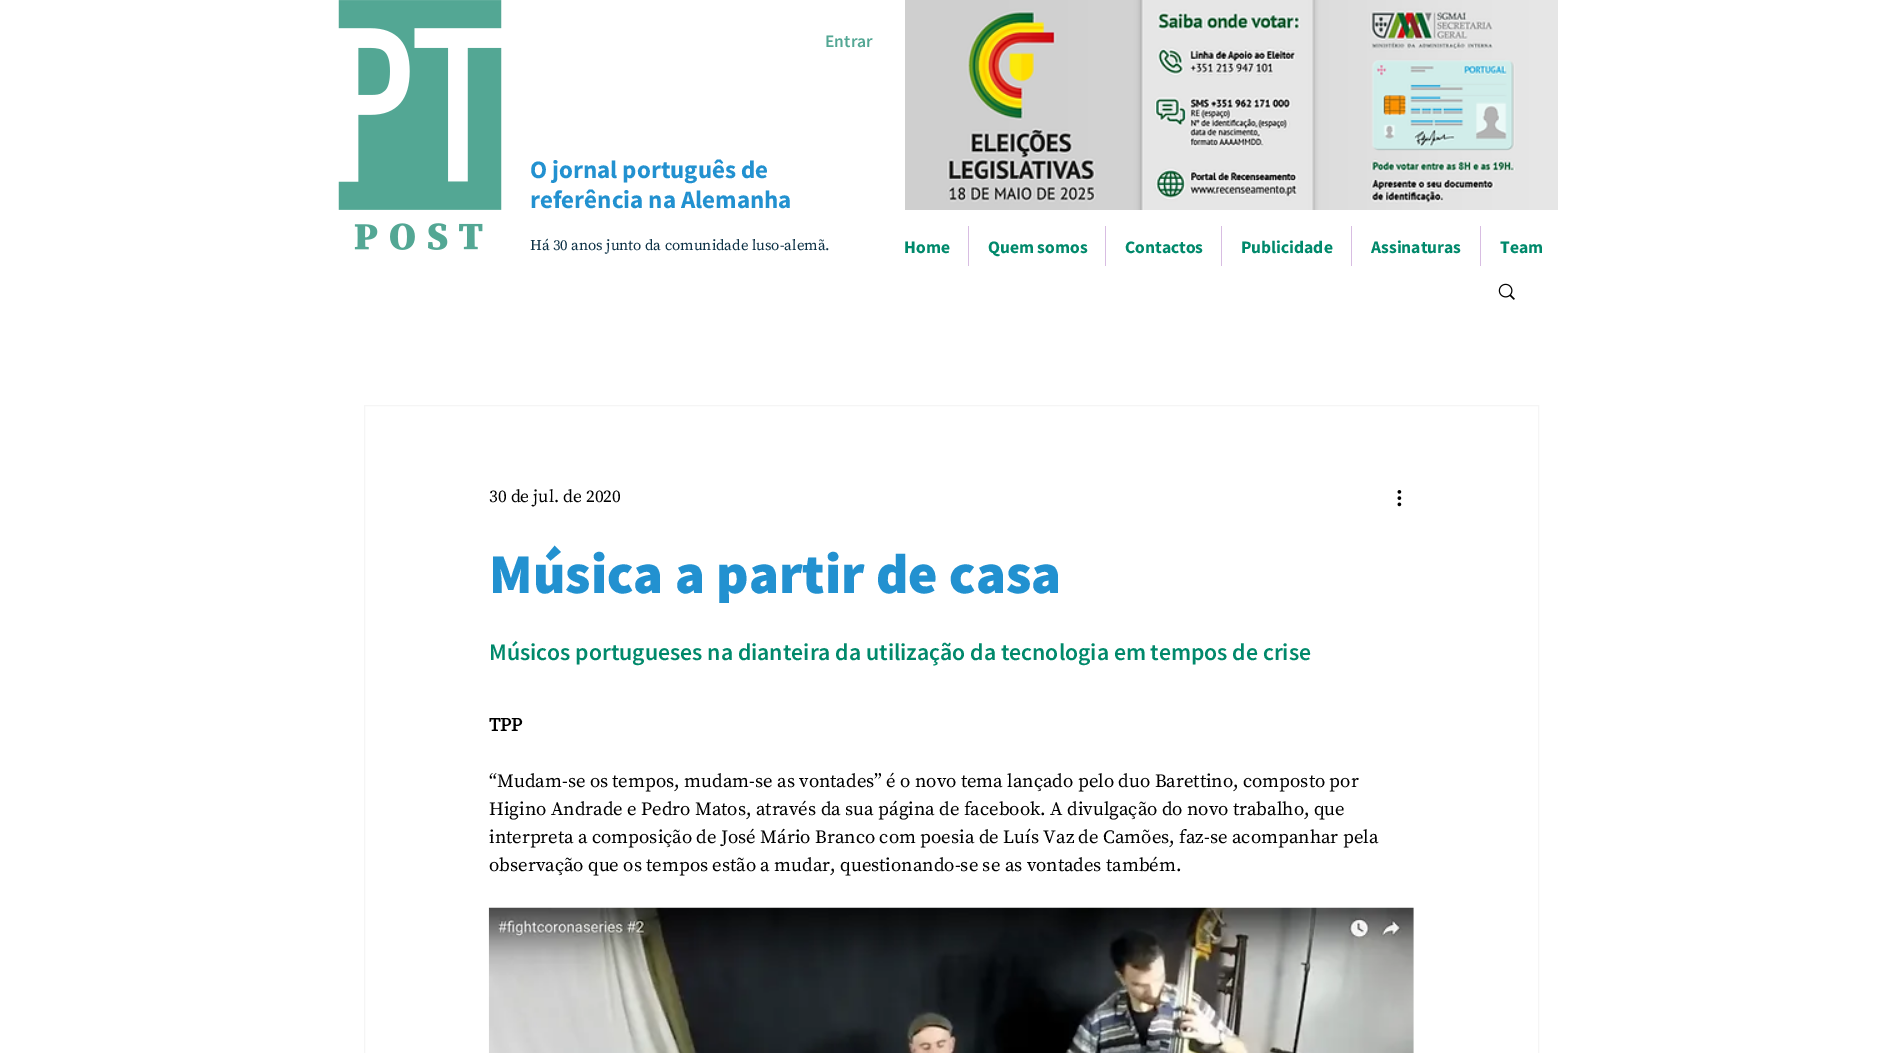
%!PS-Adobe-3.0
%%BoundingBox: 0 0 1902 1053
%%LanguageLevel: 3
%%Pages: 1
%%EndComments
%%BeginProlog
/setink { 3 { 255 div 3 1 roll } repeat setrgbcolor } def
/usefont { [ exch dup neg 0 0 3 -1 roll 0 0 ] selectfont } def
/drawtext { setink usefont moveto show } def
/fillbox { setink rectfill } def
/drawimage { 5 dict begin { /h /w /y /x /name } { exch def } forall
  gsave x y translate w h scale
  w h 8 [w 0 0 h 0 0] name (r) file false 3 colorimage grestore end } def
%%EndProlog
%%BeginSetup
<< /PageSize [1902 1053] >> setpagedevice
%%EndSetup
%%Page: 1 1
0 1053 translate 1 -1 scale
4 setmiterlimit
0 0 1902 1053 255 255 255 fillbox
(assets/img1.rgb) 338 0 164 250 drawimage
(Entrar) 825 47 /SourceSansPro-SemiBold 17.5 83 167 148 drawtext
(assets/img2.rgb) 905 0 653 210 drawimage
(O jornal português de) 530 178 /SourceSansPro-Bold 25 34 145 208 drawtext
(referência na Alemanha) 530 208 /SourceSansPro-Bold 25 34 145 208 drawtext
(Há 30 anos junto da comunidade luso-alemã.) 530 250 /SourceSerifPro-Regular 15 11 48 69 drawtext
(Home) 904 253 /SourceSansPro-Bold 17.5 0 137 107 drawtext
968 226 1 40 216 189 226 fillbox
(Quem somos) 988 253 /SourceSansPro-Bold 17.5 0 137 107 drawtext
1105 226 1 40 216 189 226 fillbox
(Contactos) 1125 253 /SourceSansPro-Bold 17.5 0 137 107 drawtext
1221 226 1 40 216 189 226 fillbox
(Publicidade) 1241 253 /SourceSansPro-Bold 17.5 0 137 107 drawtext
1351 226 1 40 216 189 226 fillbox
(Assinaturas) 1371 253 /SourceSansPro-Bold 17.5 0 137 107 drawtext
1480 226 1 40 216 189 226 fillbox
(Team) 1500 253 /SourceSansPro-Bold 17.5 0 137 107 drawtext
(assets/img3.rgb) 1498 283 17 17 drawimage
245 245 245 setink
364.5 405.5 1174 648 rectstroke
(30 de jul. de 2020) 489 502 /SourceSerifPro-Regular 17.5 0 0 0 drawtext
(assets/img4.rgb) 1397 490 5 17 drawimage
(Música a partir de casa) 489 593 /SourceSansPro-Black 56.25 34 145 208 drawtext
(Músicos portugueses na dianteira da utilização da tecnologia em tempos de crise) 489 660 /SourceSansPro-SemiBold 23.75 0 137 107 drawtext
(TPP) 489 731 /SourceSerifPro-Bold 18.75 0 0 0 drawtext
(“Mudam-se os tempos, mudam-se as vontades” é o novo tema lançado pelo duo Barettino, composto por) 489 787 /SourceSerifPro-Regular 18.75 0 0 0 drawtext
(Higino Andrade e Pedro Matos, através da sua página de facebook. A divulgação do novo trabalho, que) 489 815 /SourceSerifPro-Regular 18.75 0 0 0 drawtext
(interpreta a composição de José Mário Branco com poesia de Luís Vaz de Camões, faz-se acompanhar pela) 489 843 /SourceSerifPro-Regular 18.75 0 0 0 drawtext
(observação que os tempos estão a mudar, questionando-se se as vontades também.) 489 871 /SourceSerifPro-Regular 18.75 0 0 0 drawtext
(assets/img5.rgb) 488 907 926 146 drawimage
showpage
%%EOF
